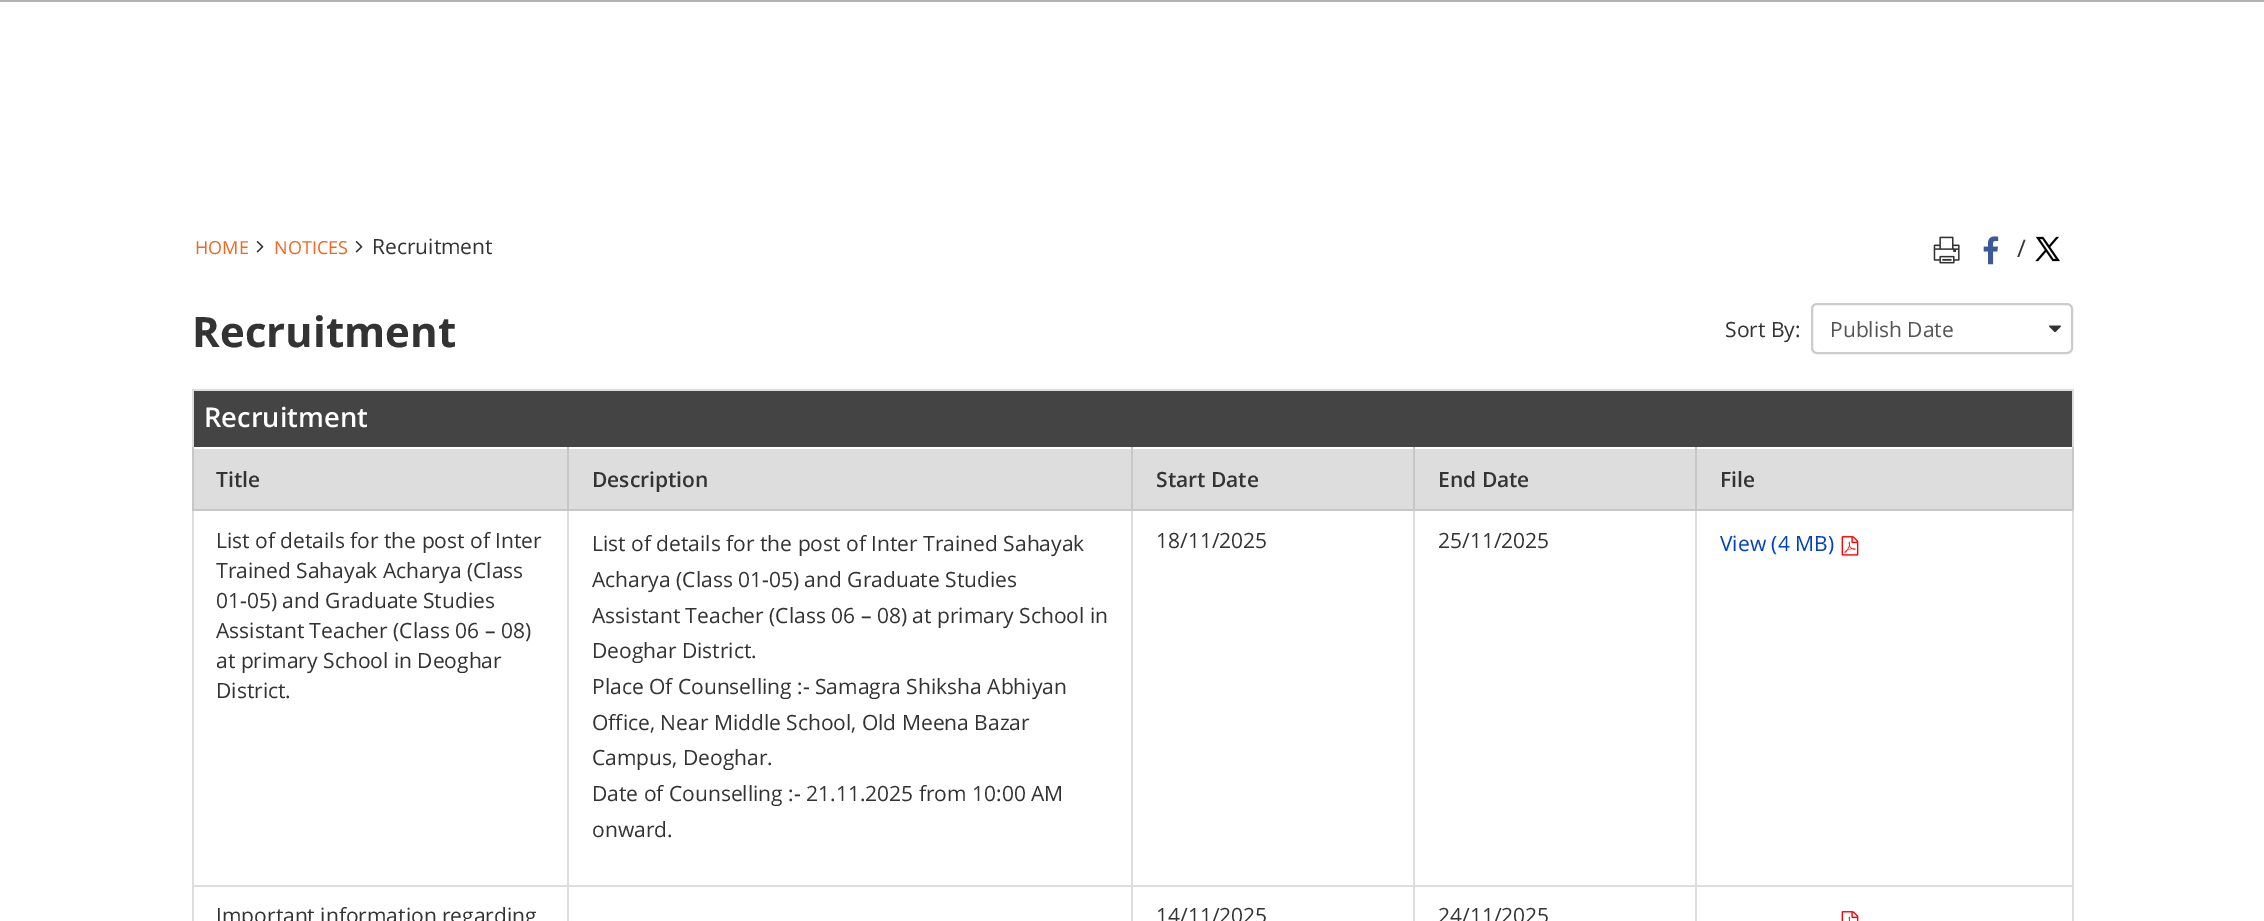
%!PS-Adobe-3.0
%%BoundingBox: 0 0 2264 921
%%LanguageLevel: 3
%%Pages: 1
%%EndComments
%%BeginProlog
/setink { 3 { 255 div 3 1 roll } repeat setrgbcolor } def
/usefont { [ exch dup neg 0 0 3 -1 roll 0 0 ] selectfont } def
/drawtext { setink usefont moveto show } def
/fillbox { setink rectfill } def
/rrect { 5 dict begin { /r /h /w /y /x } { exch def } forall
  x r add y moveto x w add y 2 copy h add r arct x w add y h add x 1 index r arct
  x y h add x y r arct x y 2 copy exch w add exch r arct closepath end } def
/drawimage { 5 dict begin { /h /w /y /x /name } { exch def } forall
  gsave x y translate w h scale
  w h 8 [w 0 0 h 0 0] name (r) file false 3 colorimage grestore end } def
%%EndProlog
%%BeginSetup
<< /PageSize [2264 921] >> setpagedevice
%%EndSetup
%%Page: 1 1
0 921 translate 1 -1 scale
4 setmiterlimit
0 0 2264 921 255 255 255 fillbox
0 0 2264 2 179 179 179 fillbox
(HOME) 195 254 /OpenSans-Regular 18 242 101 34 drawtext
(assets/img1.rgb) 256 241 8 12 drawimage
(NOTICES) 274 254 /OpenSans-Regular 18 242 101 34 drawtext
(assets/img1.rgb) 355 241 8 12 drawimage
(Recruitment) 372 254 /OpenSans-Regular 21 51 51 51 drawtext
(assets/img2.rgb) 1933 236 27 28 drawimage
(assets/img3.rgb) 1983 236 16 29 drawimage
(/) 2017 257 /OpenSans-Regular 24 51 51 51 drawtext
(assets/img4.rgb) 2035 236 25 26 drawimage
(Recruitment) 192 347 /OpenSans-Bold 42 51 51 51 drawtext
(Sort By:) 1725 337 /OpenSans-Regular 21 51 51 51 drawtext
(assets/img5.rgb) 2049 325 12 8 drawimage
204 204 204 setink
2 setlinewidth
1812 304 260 49 5 rrect stroke
(Publish Date) 1830 337 /OpenSans-Regular 21 85 85 85 drawtext
192 389 1881 2 221 221 221 fillbox
2072 389 2 532 221 221 221 fillbox
192 389 2 532 221 221 221 fillbox
194 391 1878 56 68 68 68 fillbox
(Recruitment) 204 427 /OpenSans-SemiBold 27.25 255 255 255 drawtext
194 449 373 60 221 221 221 fillbox
2072 447 2 63 199 199 199 fillbox
192 885 1881 2 221 221 221 fillbox
1695 509 2 412 221 221 221 fillbox
1695 509 378 2 199 199 199 fillbox
1695 447 2 63 199 199 199 fillbox
1413 509 2 412 221 221 221 fillbox
1413 509 284 2 199 199 199 fillbox
1413 447 2 63 199 199 199 fillbox
1131 509 2 412 221 221 221 fillbox
1131 509 284 2 199 199 199 fillbox
1131 447 2 63 199 199 199 fillbox
567 509 2 412 221 221 221 fillbox
567 509 566 2 199 199 199 fillbox
567 447 2 63 199 199 199 fillbox
192 509 377 2 199 199 199 fillbox
192 447 2 63 199 199 199 fillbox
(Title) 216 487 /OpenSans-SemiBold 21 51 51 51 drawtext
569 449 562 60 221 221 221 fillbox
(Description) 592 487 /OpenSans-SemiBold 21 51 51 51 drawtext
1133 449 280 60 221 221 221 fillbox
(Start Date) 1156 487 /OpenSans-SemiBold 21 51 51 51 drawtext
1415 449 280 60 221 221 221 fillbox
(End Date) 1438 487 /OpenSans-SemiBold 21 51 51 51 drawtext
1697 449 375 60 221 221 221 fillbox
(File) 1720 487 /OpenSans-SemiBold 21 51 51 51 drawtext
(List of details for the post of Inter) 216 548 /OpenSans-Regular 21 51 51 51 drawtext
(Trained Sahayak Acharya \(Class) 216 578 /OpenSans-Regular 21 51 51 51 drawtext
(01-05\) and Graduate Studies) 216 608 /OpenSans-Regular 21 51 51 51 drawtext
(Assistant Teacher \(Class 06 – 08\)) 216 638 /OpenSans-Regular 21 51 51 51 drawtext
(at primary School in Deoghar) 216 668 /OpenSans-Regular 21 51 51 51 drawtext
(District.) 216 698 /OpenSans-Regular 21 51 51 51 drawtext
(List of details for the post of Inter Trained Sahayak) 592 551 /OpenSans-Regular 21 51 51 51 drawtext
(Acharya \(Class 01-05\) and Graduate Studies) 592 587 /OpenSans-Regular 21 51 51 51 drawtext
(Assistant Teacher \(Class 06 – 08\) at primary School in) 592 623 /OpenSans-Regular 21 51 51 51 drawtext
(Deoghar District.) 592 658 /OpenSans-Regular 21 51 51 51 drawtext
(Place Of Counselling :- Samagra Shiksha Abhiyan) 592 694 /OpenSans-Regular 21 51 51 51 drawtext
(Office, Near Middle School, Old Meena Bazar) 592 730 /OpenSans-Regular 21 51 51 51 drawtext
(Campus, Deoghar.) 592 765 /OpenSans-Regular 21 51 51 51 drawtext
(Date of Counselling :- 21.11.2025 from 10:00 AM) 592 801 /OpenSans-Regular 21 51 51 51 drawtext
(onward.) 592 837 /OpenSans-Regular 21 51 51 51 drawtext
(18/11/2025) 1156 548 /OpenSans-Regular 21 51 51 51 drawtext
(25/11/2025) 1438 548 /OpenSans-Regular 21 51 51 51 drawtext
(View \(4 MB\)) 1720 551 /OpenSans-Regular 21 0 66 191 drawtext
(assets/img6.rgb) 1841 536 18 20 drawimage
(assets/img7.rgb) 1841 911 18 10 drawimage
(Important information regarding) 216 923 /OpenSans-Regular 21 51 51 51 drawtext
(14/11/2025) 1156 923 /OpenSans-Regular 21 51 51 51 drawtext
(24/11/2025) 1438 923 /OpenSans-Regular 21 51 51 51 drawtext
showpage
%%EOF
